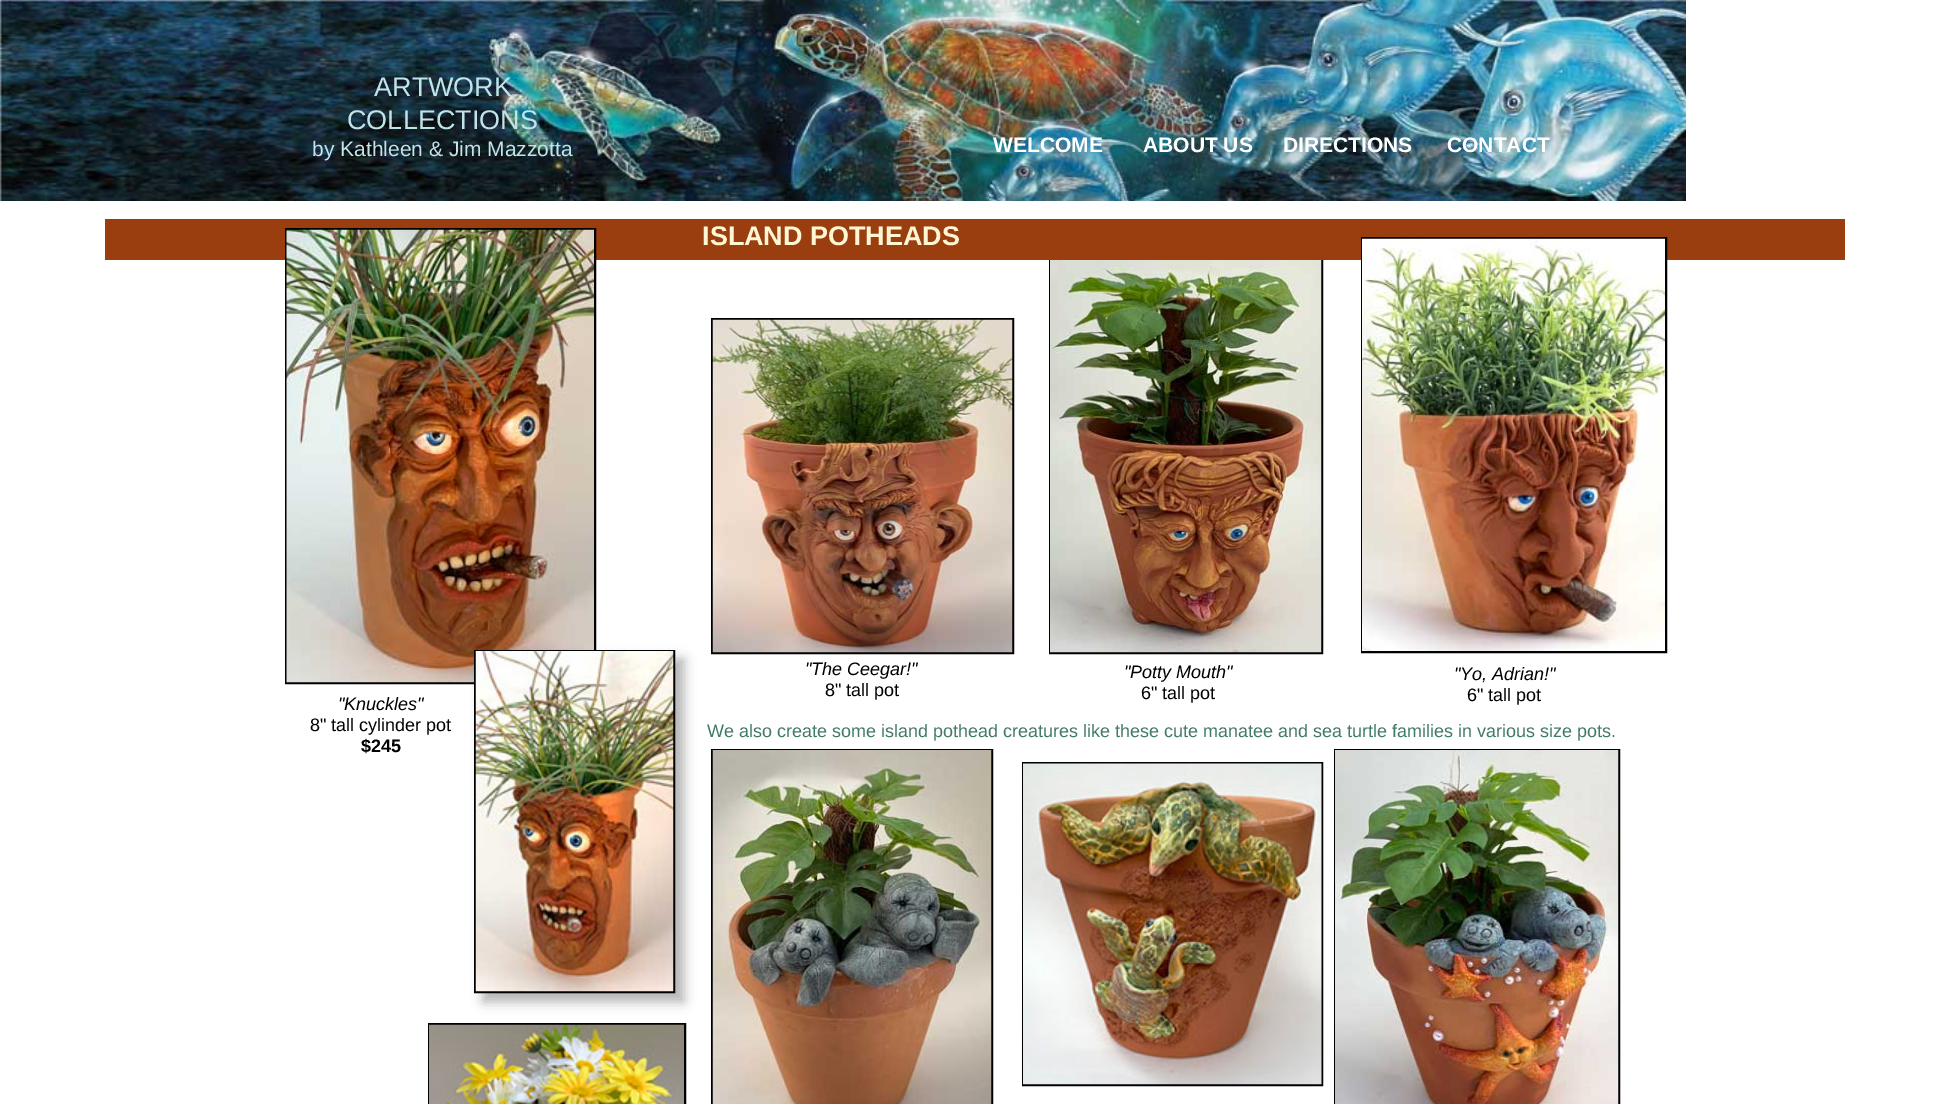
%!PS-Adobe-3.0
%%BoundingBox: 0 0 1948 1104
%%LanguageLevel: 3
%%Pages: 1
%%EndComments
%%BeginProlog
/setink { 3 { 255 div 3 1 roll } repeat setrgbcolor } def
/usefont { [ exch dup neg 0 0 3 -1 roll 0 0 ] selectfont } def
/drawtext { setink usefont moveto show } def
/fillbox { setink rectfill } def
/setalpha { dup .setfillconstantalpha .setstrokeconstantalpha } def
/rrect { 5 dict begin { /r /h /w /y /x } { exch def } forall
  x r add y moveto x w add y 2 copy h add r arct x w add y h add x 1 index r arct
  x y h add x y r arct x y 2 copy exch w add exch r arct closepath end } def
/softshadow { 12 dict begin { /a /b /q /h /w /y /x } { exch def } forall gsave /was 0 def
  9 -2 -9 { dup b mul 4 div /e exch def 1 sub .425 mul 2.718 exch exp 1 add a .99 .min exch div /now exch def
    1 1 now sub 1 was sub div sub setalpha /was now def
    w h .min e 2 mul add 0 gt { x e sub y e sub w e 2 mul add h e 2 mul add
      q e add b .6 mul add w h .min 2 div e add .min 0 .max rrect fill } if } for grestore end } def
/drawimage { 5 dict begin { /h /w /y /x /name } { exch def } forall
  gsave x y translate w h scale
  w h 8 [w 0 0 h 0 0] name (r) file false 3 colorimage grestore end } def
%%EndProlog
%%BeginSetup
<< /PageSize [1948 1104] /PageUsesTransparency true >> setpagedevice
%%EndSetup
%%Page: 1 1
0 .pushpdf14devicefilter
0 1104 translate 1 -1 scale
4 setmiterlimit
0 0 1948 1104 255 255 255 fillbox
(assets/img1.rgb) 0 0 1686 201 drawimage
(ARTWORK) 374 96 /LiberationSans-Regular 27 193 228 234 drawtext
(COLLECTIONS) 347 129 /LiberationSans-Regular 27 193 228 234 drawtext
(by Kathleen & Jim Mazzotta) 312 156 /LiberationSans-Regular 21 193 228 234 drawtext
(WELCOME) 993 152 /LiberationSans-Bold 21 255 255 255 drawtext
(ABOUT US) 1143 152 /LiberationSans-Bold 21 255 255 255 drawtext
(DIRECTIONS) 1283 152 /LiberationSans-Bold 21 255 255 255 drawtext
(CONTACT) 1447 152 /LiberationSans-Bold 21 255 255 255 drawtext
0 0 0 setink
2 setlinewidth
1050 258 272 395 rectstroke
105 219 1740 41 154 61 15 fillbox
0 0 0 setink
286 229 309 454 rectstroke
(assets/img2.rgb) 286 229 308 454 drawimage
(ISLAND POTHEADS) 702 245 /LiberationSans-Bold 27 255 246 212 drawtext
(assets/img3.rgb) 1050 260 272 393 drawimage
0 0 0 setink
1362 238 304 414 rectstroke
(assets/img4.rgb) 1362 238 303 413 drawimage
712 319 301 334 rectstroke
(assets/img5.rgb) 712 319 301 334 drawimage
483 659 201 343 0 6 0.3 softshadow
475 651 199 341 rectstroke
(assets/img6.rgb) 475 651 199 341 drawimage
("The Ceegar!") 805 675 /LiberationSans-Italic 18 0 0 0 drawtext
(8" tall pot) 825 696 /LiberationSans-Regular 18 0 0 0 drawtext
("Potty Mouth") 1124 678 /LiberationSans-Italic 18 0 0 0 drawtext
(6" tall pot) 1141 699 /LiberationSans-Regular 18 0 0 0 drawtext
("Yo, Adrian!") 1454 680 /LiberationSans-Italic 18 0 0 0 drawtext
(6" tall pot) 1467 701 /LiberationSans-Regular 18 0 0 0 drawtext
("Knuckles") 338 710 /LiberationSans-Italic 18 0 0 0 drawtext
(8" tall cylinder pot) 310 731 /LiberationSans-Regular 18 0 0 0 drawtext
($245) 361 752 /LiberationSans-Bold 18 0 0 0 drawtext
(We also create some island pothead creatures like these cute manatee and sea turtle families in various size pots.) 707 737 /LiberationSans-Regular 18 65 123 100 drawtext
0 0 0 setink
429 1024 256 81 rectstroke
(assets/img7.rgb) 429 1024 255 80 drawimage
712 750 280 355 rectstroke
(assets/img8.rgb) 712 750 280 354 drawimage
1023 763 299 322 rectstroke
(assets/img9.rgb) 1023 763 299 322 drawimage
1335 750 284 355 rectstroke
(assets/img10.rgb) 1335 750 284 354 drawimage
.poppdf14devicefilter showpage
%%EOF
